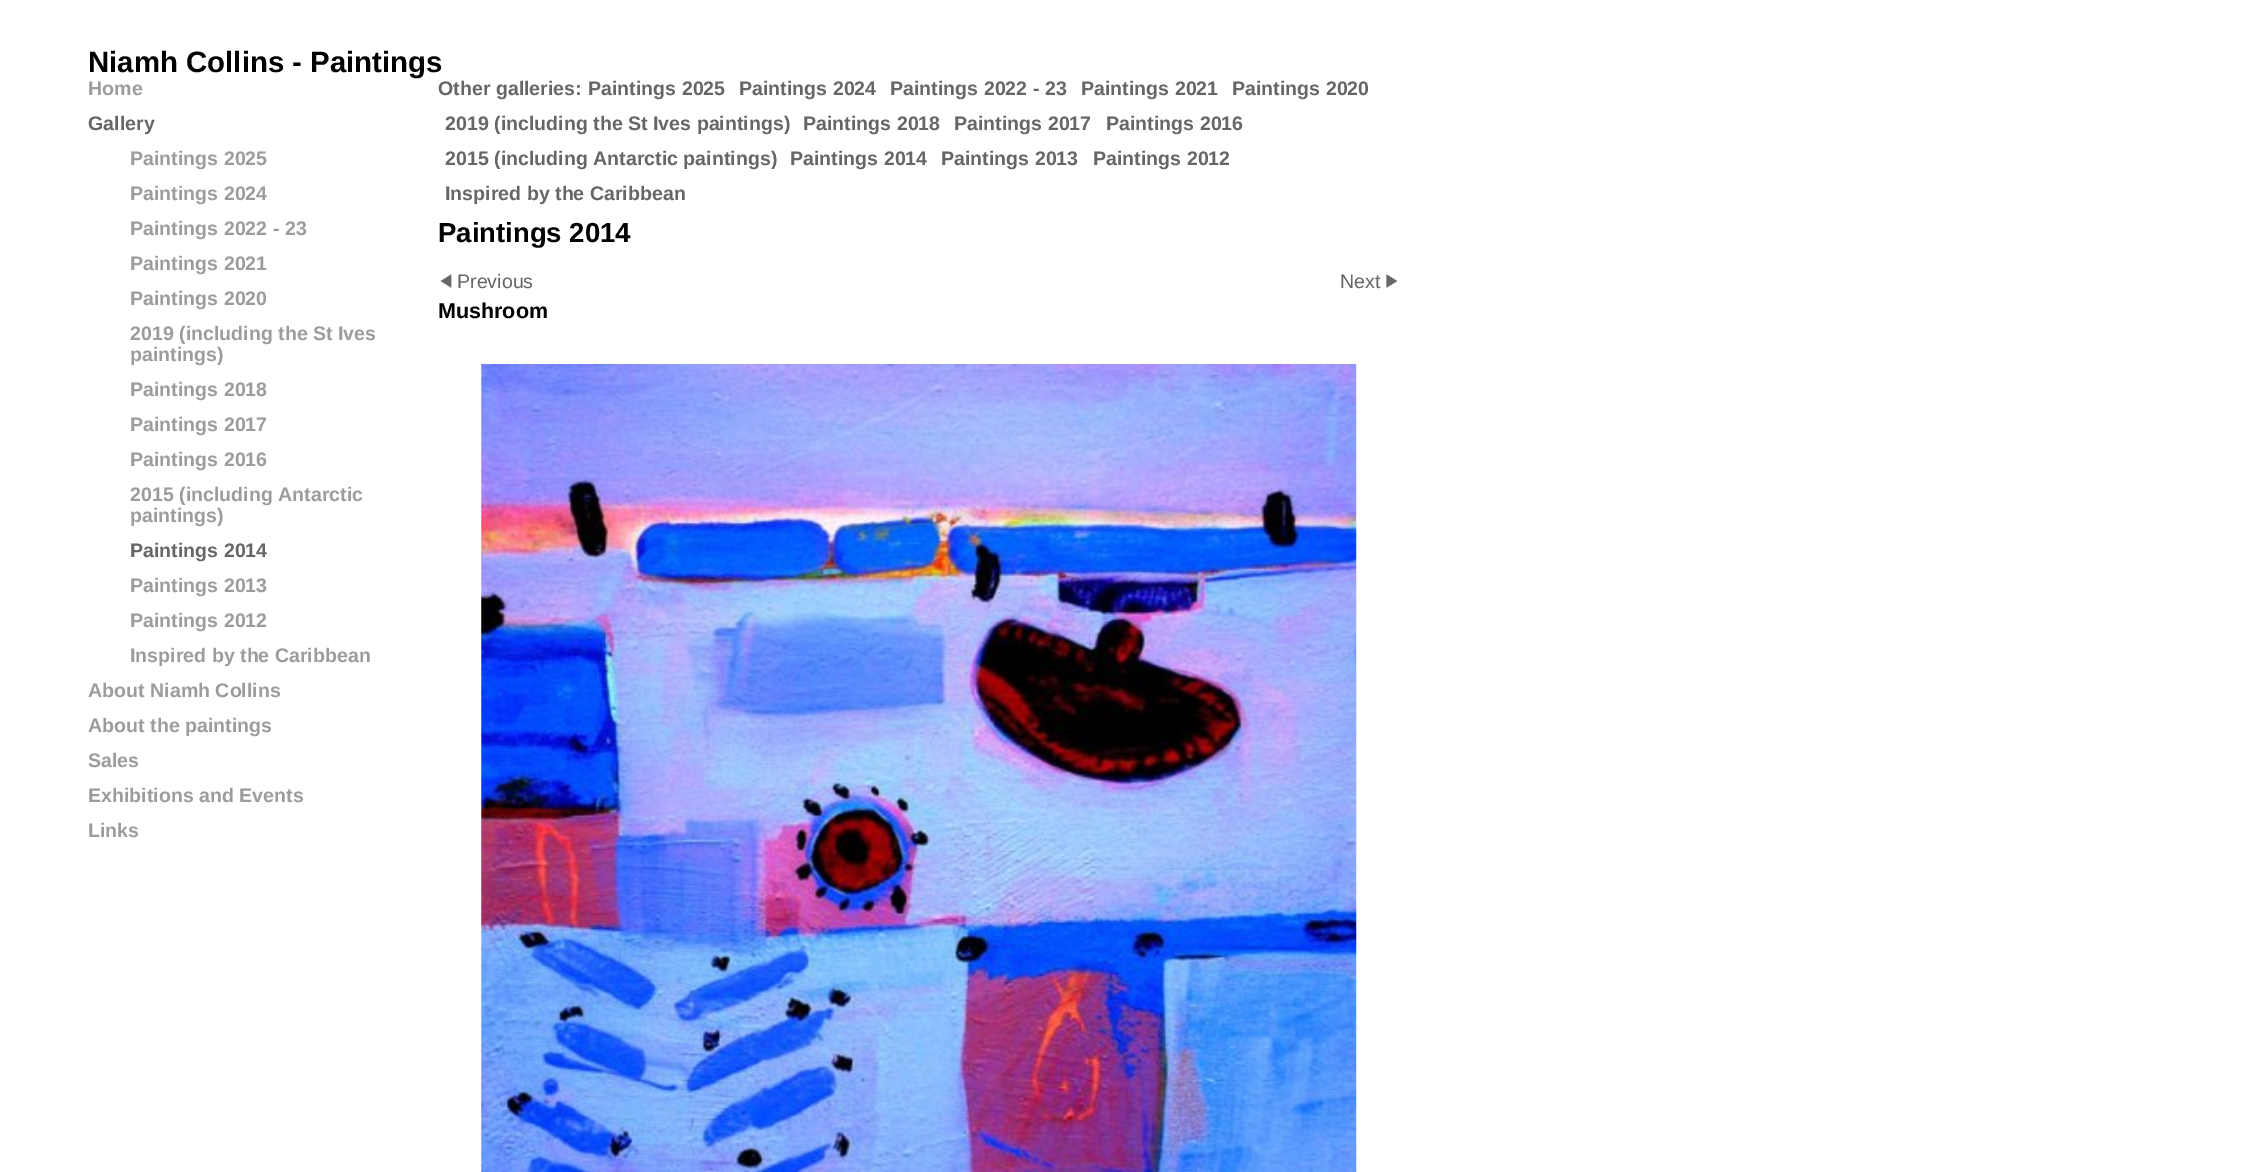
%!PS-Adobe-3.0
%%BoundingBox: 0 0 2250 1172
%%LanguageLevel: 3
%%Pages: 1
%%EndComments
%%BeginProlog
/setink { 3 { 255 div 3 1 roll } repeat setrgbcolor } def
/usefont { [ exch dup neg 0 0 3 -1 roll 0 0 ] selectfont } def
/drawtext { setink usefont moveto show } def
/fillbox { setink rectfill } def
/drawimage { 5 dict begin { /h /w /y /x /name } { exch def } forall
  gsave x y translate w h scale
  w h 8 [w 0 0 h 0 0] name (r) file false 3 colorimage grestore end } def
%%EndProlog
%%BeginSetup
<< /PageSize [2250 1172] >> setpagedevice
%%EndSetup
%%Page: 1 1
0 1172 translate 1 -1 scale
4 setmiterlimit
0 0 2250 1172 255 255 255 fillbox
(Niamh Collins - Paintings) 88 72 /LiberationSans-Bold 29.4 0 0 0 drawtext
(Home) 88 95 /LiberationSans-Bold 19.6 156 156 156 drawtext
(Gallery) 88 130 /LiberationSans-Bold 19.6 102 102 102 drawtext
(About Niamh Collins) 88 697 /LiberationSans-Bold 19.6 156 156 156 drawtext
(About the paintings) 88 732 /LiberationSans-Bold 19.6 156 156 156 drawtext
(Sales) 88 767 /LiberationSans-Bold 19.6 156 156 156 drawtext
(Exhibitions and Events) 88 802 /LiberationSans-Bold 19.6 156 156 156 drawtext
(Links) 88 837 /LiberationSans-Bold 19.6 156 156 156 drawtext
(Other galleries:) 438 95 /LiberationSans-Bold 19.6 102 102 102 drawtext
(Paintings 2025) 588 95 /LiberationSans-Bold 19.6 102 102 102 drawtext
(Paintings 2024) 739 95 /LiberationSans-Bold 19.6 102 102 102 drawtext
(Paintings 2022 - 23) 890 95 /LiberationSans-Bold 19.6 102 102 102 drawtext
(Paintings 2021) 1081 95 /LiberationSans-Bold 19.6 102 102 102 drawtext
(Paintings 2020) 1232 95 /LiberationSans-Bold 19.6 102 102 102 drawtext
(2019 \(including the St Ives paintings\)) 445 130 /LiberationSans-Bold 19.6 102 102 102 drawtext
(Paintings 2018) 803 130 /LiberationSans-Bold 19.6 102 102 102 drawtext
(Paintings 2017) 954 130 /LiberationSans-Bold 19.6 102 102 102 drawtext
(Paintings 2016) 1106 130 /LiberationSans-Bold 19.6 102 102 102 drawtext
(2015 \(including Antarctic paintings\)) 445 165 /LiberationSans-Bold 19.6 102 102 102 drawtext
(Paintings 2014) 790 165 /LiberationSans-Bold 19.6 102 102 102 drawtext
(Paintings 2013) 941 165 /LiberationSans-Bold 19.6 102 102 102 drawtext
(Paintings 2012) 1093 165 /LiberationSans-Bold 19.6 102 102 102 drawtext
(Inspired by the Caribbean) 445 200 /LiberationSans-Bold 19.6 102 102 102 drawtext
(Paintings 2014) 438 242 /LiberationSans-Bold 27.5 0 0 0 drawtext
(assets/img1.rgb) 440 274 12 14 drawimage
(Previous) 457 288 /LiberationSans-Regular 19.6 102 102 102 drawtext
(Next) 1340 288 /LiberationSans-Regular 19.6 102 102 102 drawtext
(assets/img2.rgb) 1386 274 12 14 drawimage
(Mushroom) 438 318 /LiberationSans-Bold 21.5 0 0 0 drawtext
(assets/img3.rgb) 481 364 876 808 drawimage
(Paintings 2025) 130 165 /LiberationSans-Bold 19.6 156 156 156 drawtext
(Paintings 2024) 130 200 /LiberationSans-Bold 19.6 156 156 156 drawtext
(Paintings 2022 - 23) 130 235 /LiberationSans-Bold 19.6 156 156 156 drawtext
(Paintings 2021) 130 270 /LiberationSans-Bold 19.6 156 156 156 drawtext
(Paintings 2020) 130 305 /LiberationSans-Bold 19.6 156 156 156 drawtext
(2019 \(including the St Ives) 130 340 /LiberationSans-Bold 19.6 156 156 156 drawtext
(paintings\)) 130 361 /LiberationSans-Bold 19.6 156 156 156 drawtext
(Paintings 2018) 130 396 /LiberationSans-Bold 19.6 156 156 156 drawtext
(Paintings 2017) 130 431 /LiberationSans-Bold 19.6 156 156 156 drawtext
(Paintings 2016) 130 466 /LiberationSans-Bold 19.6 156 156 156 drawtext
(2015 \(including Antarctic) 130 501 /LiberationSans-Bold 19.6 156 156 156 drawtext
(paintings\)) 130 522 /LiberationSans-Bold 19.6 156 156 156 drawtext
(Paintings 2014) 130 557 /LiberationSans-Bold 19.6 102 102 102 drawtext
(Paintings 2013) 130 592 /LiberationSans-Bold 19.6 156 156 156 drawtext
(Paintings 2012) 130 627 /LiberationSans-Bold 19.6 156 156 156 drawtext
(Inspired by the Caribbean) 130 662 /LiberationSans-Bold 19.6 156 156 156 drawtext
showpage
%%EOF
